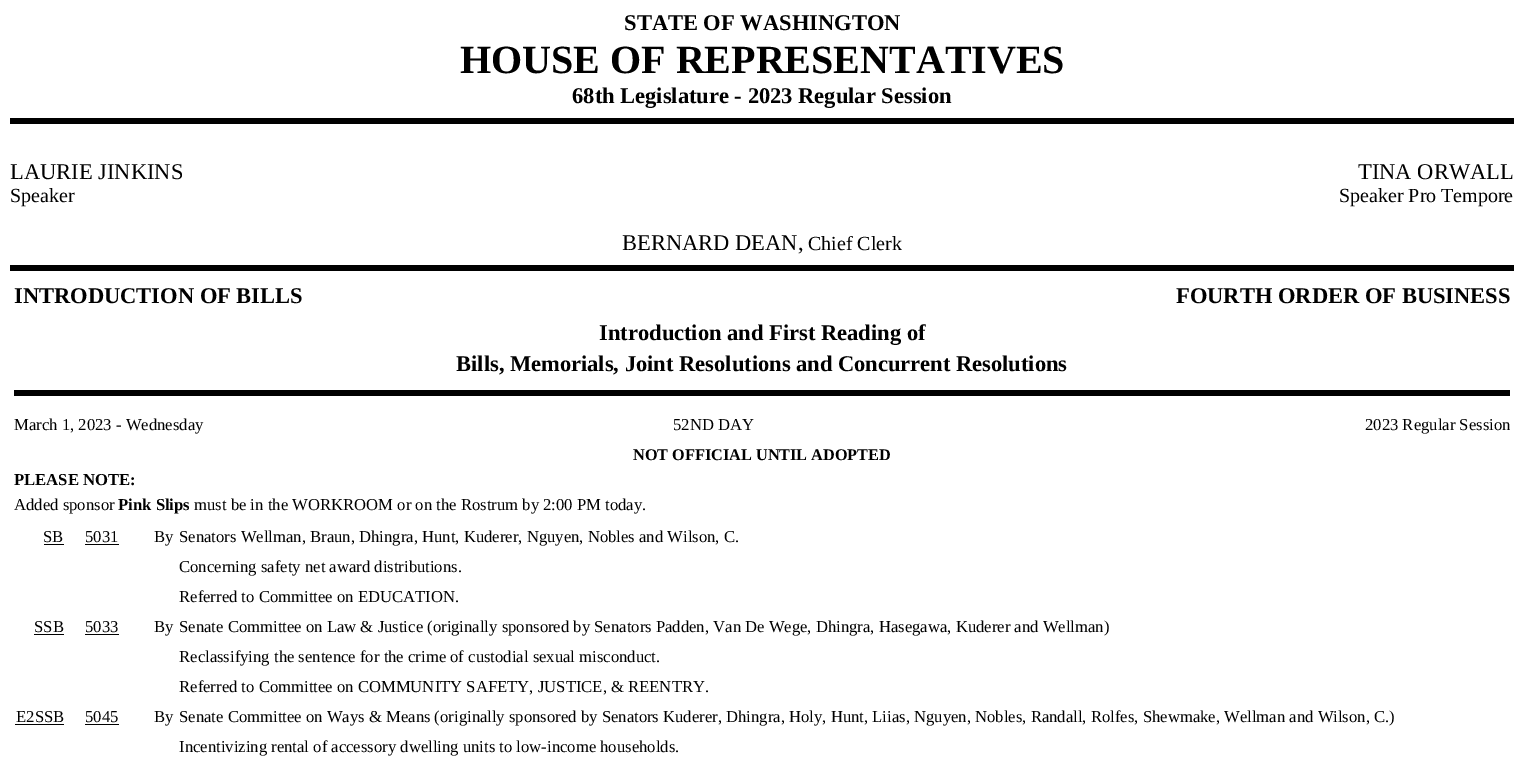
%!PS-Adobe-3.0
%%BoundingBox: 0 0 1523 772
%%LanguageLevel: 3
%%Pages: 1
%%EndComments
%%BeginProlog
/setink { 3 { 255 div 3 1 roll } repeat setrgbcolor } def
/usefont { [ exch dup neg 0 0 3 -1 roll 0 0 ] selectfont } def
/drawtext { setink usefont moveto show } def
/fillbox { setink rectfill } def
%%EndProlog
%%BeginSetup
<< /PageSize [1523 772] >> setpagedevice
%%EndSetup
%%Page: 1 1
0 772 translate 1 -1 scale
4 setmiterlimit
0 0 1523 772 255 255 255 fillbox
(STATE OF WASHINGTON) 624 30 /LiberationSerif-Bold 22.5 0 0 0 drawtext
(HOUSE OF REPRESENTATIVES) 460 73 /LiberationSerif-Bold 40 0 0 0 drawtext
(68th Legislature - 2023 Regular Session) 572 103 /LiberationSerif-Bold 22.5 0 0 0 drawtext
10 118 1504 6 0 0 0 fillbox
(LAURIE JINKINS) 10 179 /LiberationSerif-Regular 22.5 0 0 0 drawtext
(TINA ORWALL) 1358 179 /LiberationSerif-Regular 22.5 0 0 0 drawtext
(Speaker) 10 202 /LiberationSerif-Regular 20 0 0 0 drawtext
(Speaker Pro Tempore) 1339 202 /LiberationSerif-Regular 20 0 0 0 drawtext
(BERNARD DEAN,) 622 250 /LiberationSerif-Regular 22.5 0 0 0 drawtext
(Chief Clerk) 808 250 /LiberationSerif-Regular 20 0 0 0 drawtext
10 265 1504 6 0 0 0 fillbox
(INTRODUCTION OF BILLS) 14 303 /LiberationSerif-Bold 22.5 0 0 0 drawtext
(FOURTH ORDER OF BUSINESS) 1176 303 /LiberationSerif-Bold 22.5 0 0 0 drawtext
(Introduction and First Reading of) 599 340 /LiberationSerif-Bold 22.5 0 0 0 drawtext
(Bills, Memorials, Joint Resolutions and Concurrent Resolutions) 456 371 /LiberationSerif-Bold 22.5 0 0 0 drawtext
14 390 1496 6 0 0 0 fillbox
(March 1, 2023 - Wednesday) 14 430 /LiberationSerif-Regular 16.67 0 0 0 drawtext
(52ND DAY) 673 430 /LiberationSerif-Regular 16.67 0 0 0 drawtext
(2023 Regular Session) 1365 430 /LiberationSerif-Regular 16.67 0 0 0 drawtext
(NOT OFFICIAL UNTIL ADOPTED) 633 460 /LiberationSerif-Bold 16.25 0 0 0 drawtext
(PLEASE NOTE:) 14 485 /LiberationSerif-Bold 16.67 0 0 0 drawtext
(Added sponsor) 14 510 /LiberationSerif-Regular 16.67 0 0 0 drawtext
(Pink Slips) 118 510 /LiberationSerif-Bold 16.67 0 0 0 drawtext
(must be in the WORKROOM or on the Rostrum by 2:00 PM today.) 194 510 /LiberationSerif-Regular 16.67 0 0 0 drawtext
(SB) 43 542 /LiberationSerif-Regular 16.67 0 0 0 drawtext
44 544 20 1 0 0 0 fillbox
(5031) 85 542 /LiberationSerif-Regular 16.67 0 0 0 drawtext
85 544 34 1 0 0 0 fillbox
(By) 154 542 /LiberationSerif-Regular 16.67 0 0 0 drawtext
(Senators Wellman, Braun, Dhingra, Hunt, Kuderer, Nguyen, Nobles and Wilson, C.) 179 542 /LiberationSerif-Regular 16.67 0 0 0 drawtext
(Concerning safety net award distributions.) 179 572 /LiberationSerif-Regular 16.67 0 0 0 drawtext
(Referred to Committee on EDUCATION.) 179 602 /LiberationSerif-Regular 16.67 0 0 0 drawtext
(SSB) 34 632 /LiberationSerif-Regular 16.67 0 0 0 drawtext
34 634 30 1 0 0 0 fillbox
(5033) 85 632 /LiberationSerif-Regular 16.67 0 0 0 drawtext
85 634 34 1 0 0 0 fillbox
(By) 154 632 /LiberationSerif-Regular 16.67 0 0 0 drawtext
(Senate Committee on Law & Justice \(originally sponsored by Senators Padden, Van De Wege, Dhingra, Hasegawa, Kuderer and Wellman\)) 179 632 /LiberationSerif-Regular 16.67 0 0 0 drawtext
(Reclassifying the sentence for the crime of custodial sexual misconduct.) 179 662 /LiberationSerif-Regular 16.67 0 0 0 drawtext
(Referred to Committee on COMMUNITY SAFETY, JUSTICE, & REENTRY.) 179 692 /LiberationSerif-Regular 16.67 0 0 0 drawtext
(E2SSB) 16 722 /LiberationSerif-Regular 16.67 0 0 0 drawtext
15 724 49 1 0 0 0 fillbox
(5045) 85 722 /LiberationSerif-Regular 16.67 0 0 0 drawtext
85 724 34 1 0 0 0 fillbox
(By) 154 722 /LiberationSerif-Regular 16.67 0 0 0 drawtext
(Senate Committee on Ways & Means \(originally sponsored by Senators Kuderer, Dhingra, Holy, Hunt, Liias, Nguyen, Nobles, Randall, Rolfes, Shewmake, Wellman and Wilson, C.\)) 179 722 /LiberationSerif-Regular 16.67 0 0 0 drawtext
(Incentivizing rental of accessory dwelling units to low-income households.) 179 752 /LiberationSerif-Regular 16.67 0 0 0 drawtext
showpage
%%EOF
